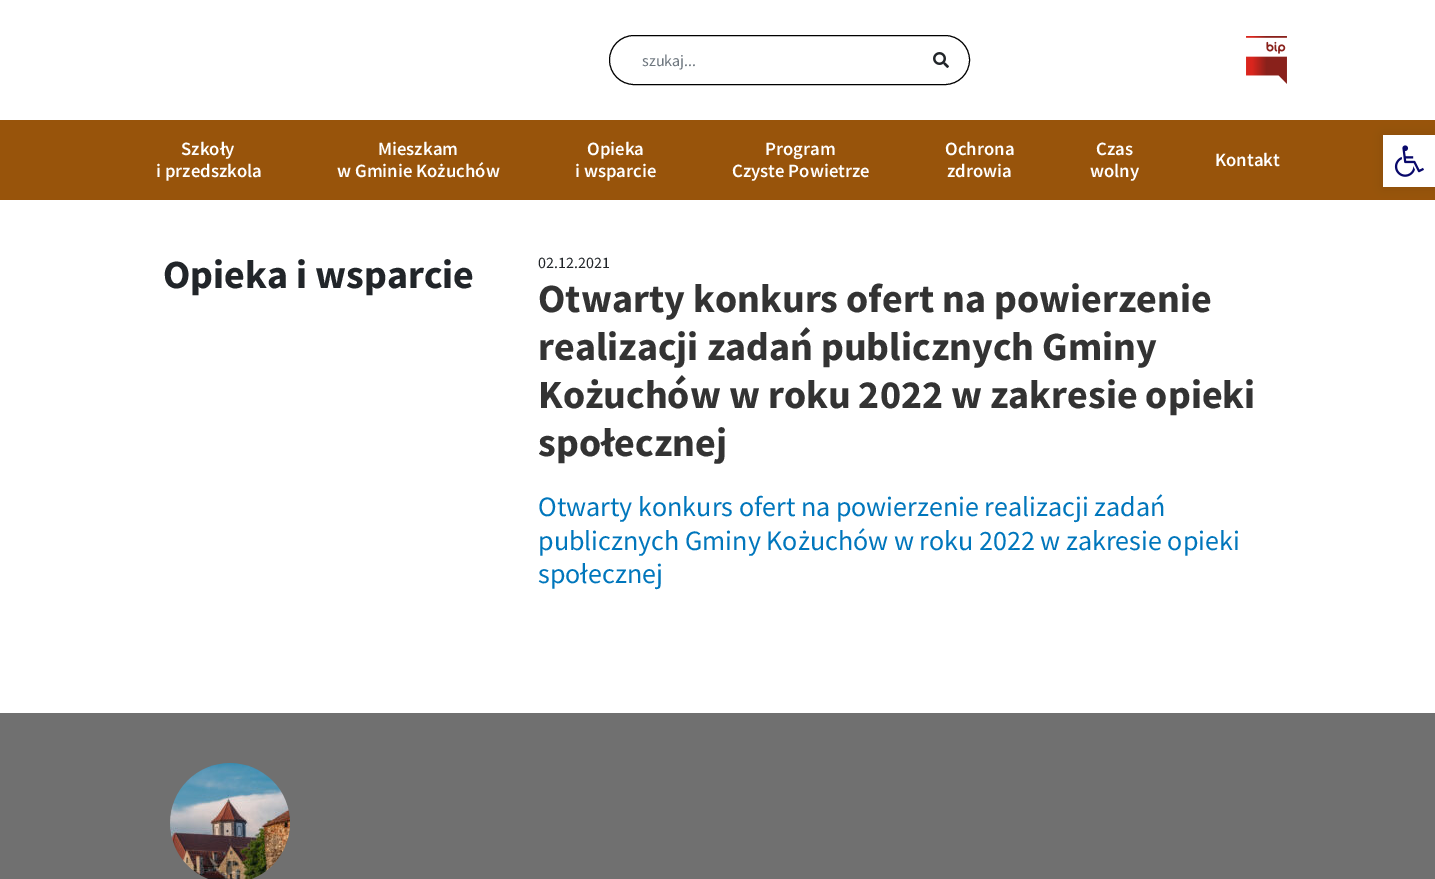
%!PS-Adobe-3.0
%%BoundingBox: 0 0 1435 879
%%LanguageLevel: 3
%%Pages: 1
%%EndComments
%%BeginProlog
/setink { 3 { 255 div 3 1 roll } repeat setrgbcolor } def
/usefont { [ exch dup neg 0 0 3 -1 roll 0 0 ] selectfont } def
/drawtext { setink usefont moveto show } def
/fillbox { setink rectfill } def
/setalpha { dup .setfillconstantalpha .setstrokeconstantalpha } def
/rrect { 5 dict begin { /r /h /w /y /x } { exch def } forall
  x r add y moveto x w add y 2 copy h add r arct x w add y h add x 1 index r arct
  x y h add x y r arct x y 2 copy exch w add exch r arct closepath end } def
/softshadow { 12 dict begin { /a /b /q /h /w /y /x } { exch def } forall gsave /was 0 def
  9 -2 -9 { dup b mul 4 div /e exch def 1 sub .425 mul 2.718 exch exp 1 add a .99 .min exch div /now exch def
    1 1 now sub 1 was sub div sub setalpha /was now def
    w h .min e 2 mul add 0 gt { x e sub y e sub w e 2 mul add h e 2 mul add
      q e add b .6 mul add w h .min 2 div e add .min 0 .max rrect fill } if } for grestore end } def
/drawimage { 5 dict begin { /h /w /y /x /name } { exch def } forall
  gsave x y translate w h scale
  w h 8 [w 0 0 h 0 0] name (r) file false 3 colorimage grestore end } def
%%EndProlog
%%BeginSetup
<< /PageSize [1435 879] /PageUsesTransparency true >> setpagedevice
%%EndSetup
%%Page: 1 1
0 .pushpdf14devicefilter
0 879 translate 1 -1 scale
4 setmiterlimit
0 0 1435 879 255 255 255 fillbox
0 0 0 setink
609.5 35.5 360 49 24.5 rrect stroke
(szukaj...) 642 66 /SourceSansPro-Regular 16 108 117 125 drawtext
(assets/img1.rgb) 933 52 16 16 drawimage
(assets/img2.rgb) 1246 36 41 48 drawimage
0 120 1435 80 152 84 11 fillbox
(Szkoły) 181 155 /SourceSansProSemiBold-SemiBold 18.75 255 255 255 drawtext
(i przedszkola) 156 177 /SourceSansProSemiBold-SemiBold 18.75 255 255 255 drawtext
(Mieszkam) 378 155 /SourceSansProSemiBold-SemiBold 18.75 255 255 255 drawtext
(w Gminie Kożuchów) 337 177 /SourceSansProSemiBold-SemiBold 18.75 255 255 255 drawtext
(Opieka) 587 155 /SourceSansProSemiBold-SemiBold 18.75 255 255 255 drawtext
(i wsparcie) 575 177 /SourceSansProSemiBold-SemiBold 18.75 255 255 255 drawtext
(Program) 765 155 /SourceSansProSemiBold-SemiBold 18.75 255 255 255 drawtext
(Czyste Powietrze) 732 177 /SourceSansProSemiBold-SemiBold 18.75 255 255 255 drawtext
(Ochrona) 945 155 /SourceSansProSemiBold-SemiBold 18.75 255 255 255 drawtext
(zdrowia) 947 177 /SourceSansProSemiBold-SemiBold 18.75 255 255 255 drawtext
(Czas) 1096 155 /SourceSansProSemiBold-SemiBold 18.75 255 255 255 drawtext
(wolny) 1090 177 /SourceSansProSemiBold-SemiBold 18.75 255 255 255 drawtext
(Kontakt) 1215 166 /SourceSansProSemiBold-SemiBold 18.75 255 255 255 drawtext
(Opieka i wsparcie) 163 288 /SourceSansPro-Bold 40 33 37 41 drawtext
(02.12.2021) 538 268 /SourceSansPro-Regular 16 33 37 41 drawtext
(Otwarty konkurs ofert na powierzenie) 538 312 /SourceSansPro-Bold 40 51 51 51 drawtext
(realizacji zadań publicznych Gminy) 538 360 /SourceSansPro-Bold 40 51 51 51 drawtext
(Kożuchów w roku 2022 w zakresie opieki) 538 408 /SourceSansPro-Bold 40 51 51 51 drawtext
(społecznej) 538 456 /SourceSansPro-Bold 40 51 51 51 drawtext
(Otwarty konkurs ofert na powierzenie realizacji zadań) 538 516 /SourceSansPro-Regular 28 0 118 188 drawtext
(publicznych Gminy Kożuchów w roku 2022 w zakresie opieki) 538 550 /SourceSansPro-Regular 28 0 118 188 drawtext
(społecznej) 538 583 /SourceSansPro-Regular 28 0 118 188 drawtext
0 713 1435 166 112 112 112 fillbox
(assets/img3.rgb) 170 763 120 116 drawimage
0 0 0 setink
1383 135 52 52 0 5 0.1 softshadow
1383 135 52 52 255 255 255 fillbox
(assets/img4.rgb) 1394 145 30 32 drawimage
.poppdf14devicefilter showpage
%%EOF
